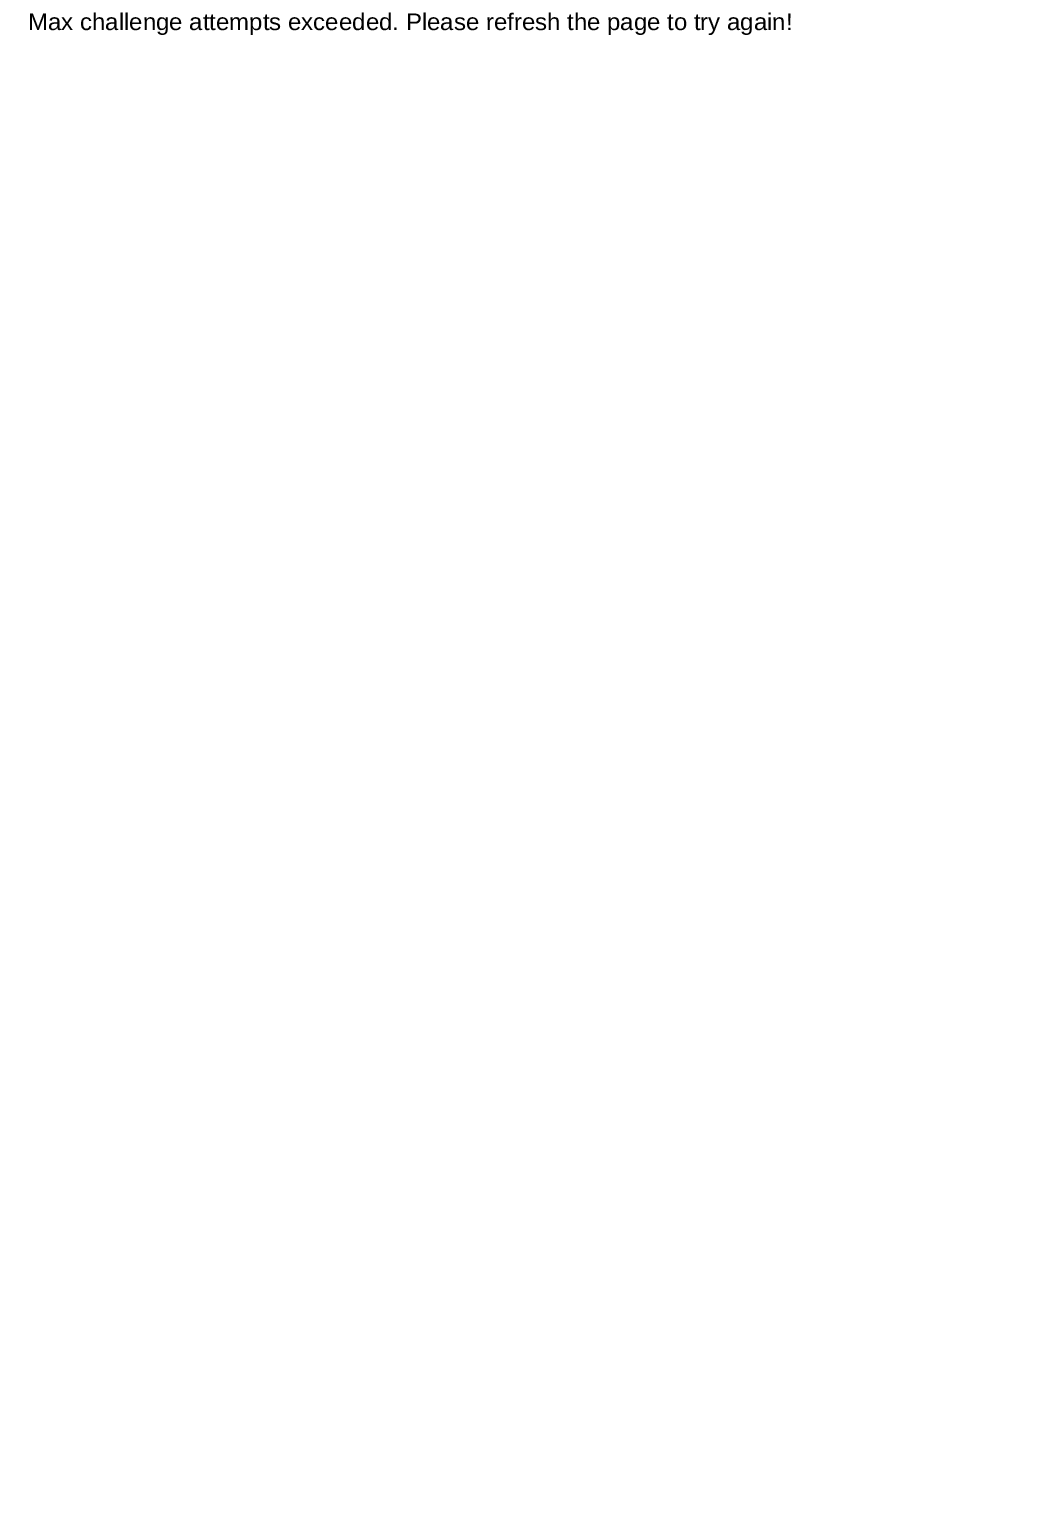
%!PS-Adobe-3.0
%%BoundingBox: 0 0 1046 1523
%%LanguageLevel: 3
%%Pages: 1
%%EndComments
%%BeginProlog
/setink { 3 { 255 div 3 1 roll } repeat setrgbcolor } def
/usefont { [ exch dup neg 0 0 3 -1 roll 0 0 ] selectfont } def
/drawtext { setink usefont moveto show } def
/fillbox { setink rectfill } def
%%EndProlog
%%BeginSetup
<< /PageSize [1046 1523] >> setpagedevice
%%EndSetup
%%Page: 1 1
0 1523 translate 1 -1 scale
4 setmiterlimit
0 0 1046 1523 255 255 255 fillbox
(Max challenge attempts exceeded. Please refresh the page to try again!) 28 30 /LiberationSans-Regular 24 0 0 0 drawtext
showpage
%%EOF
